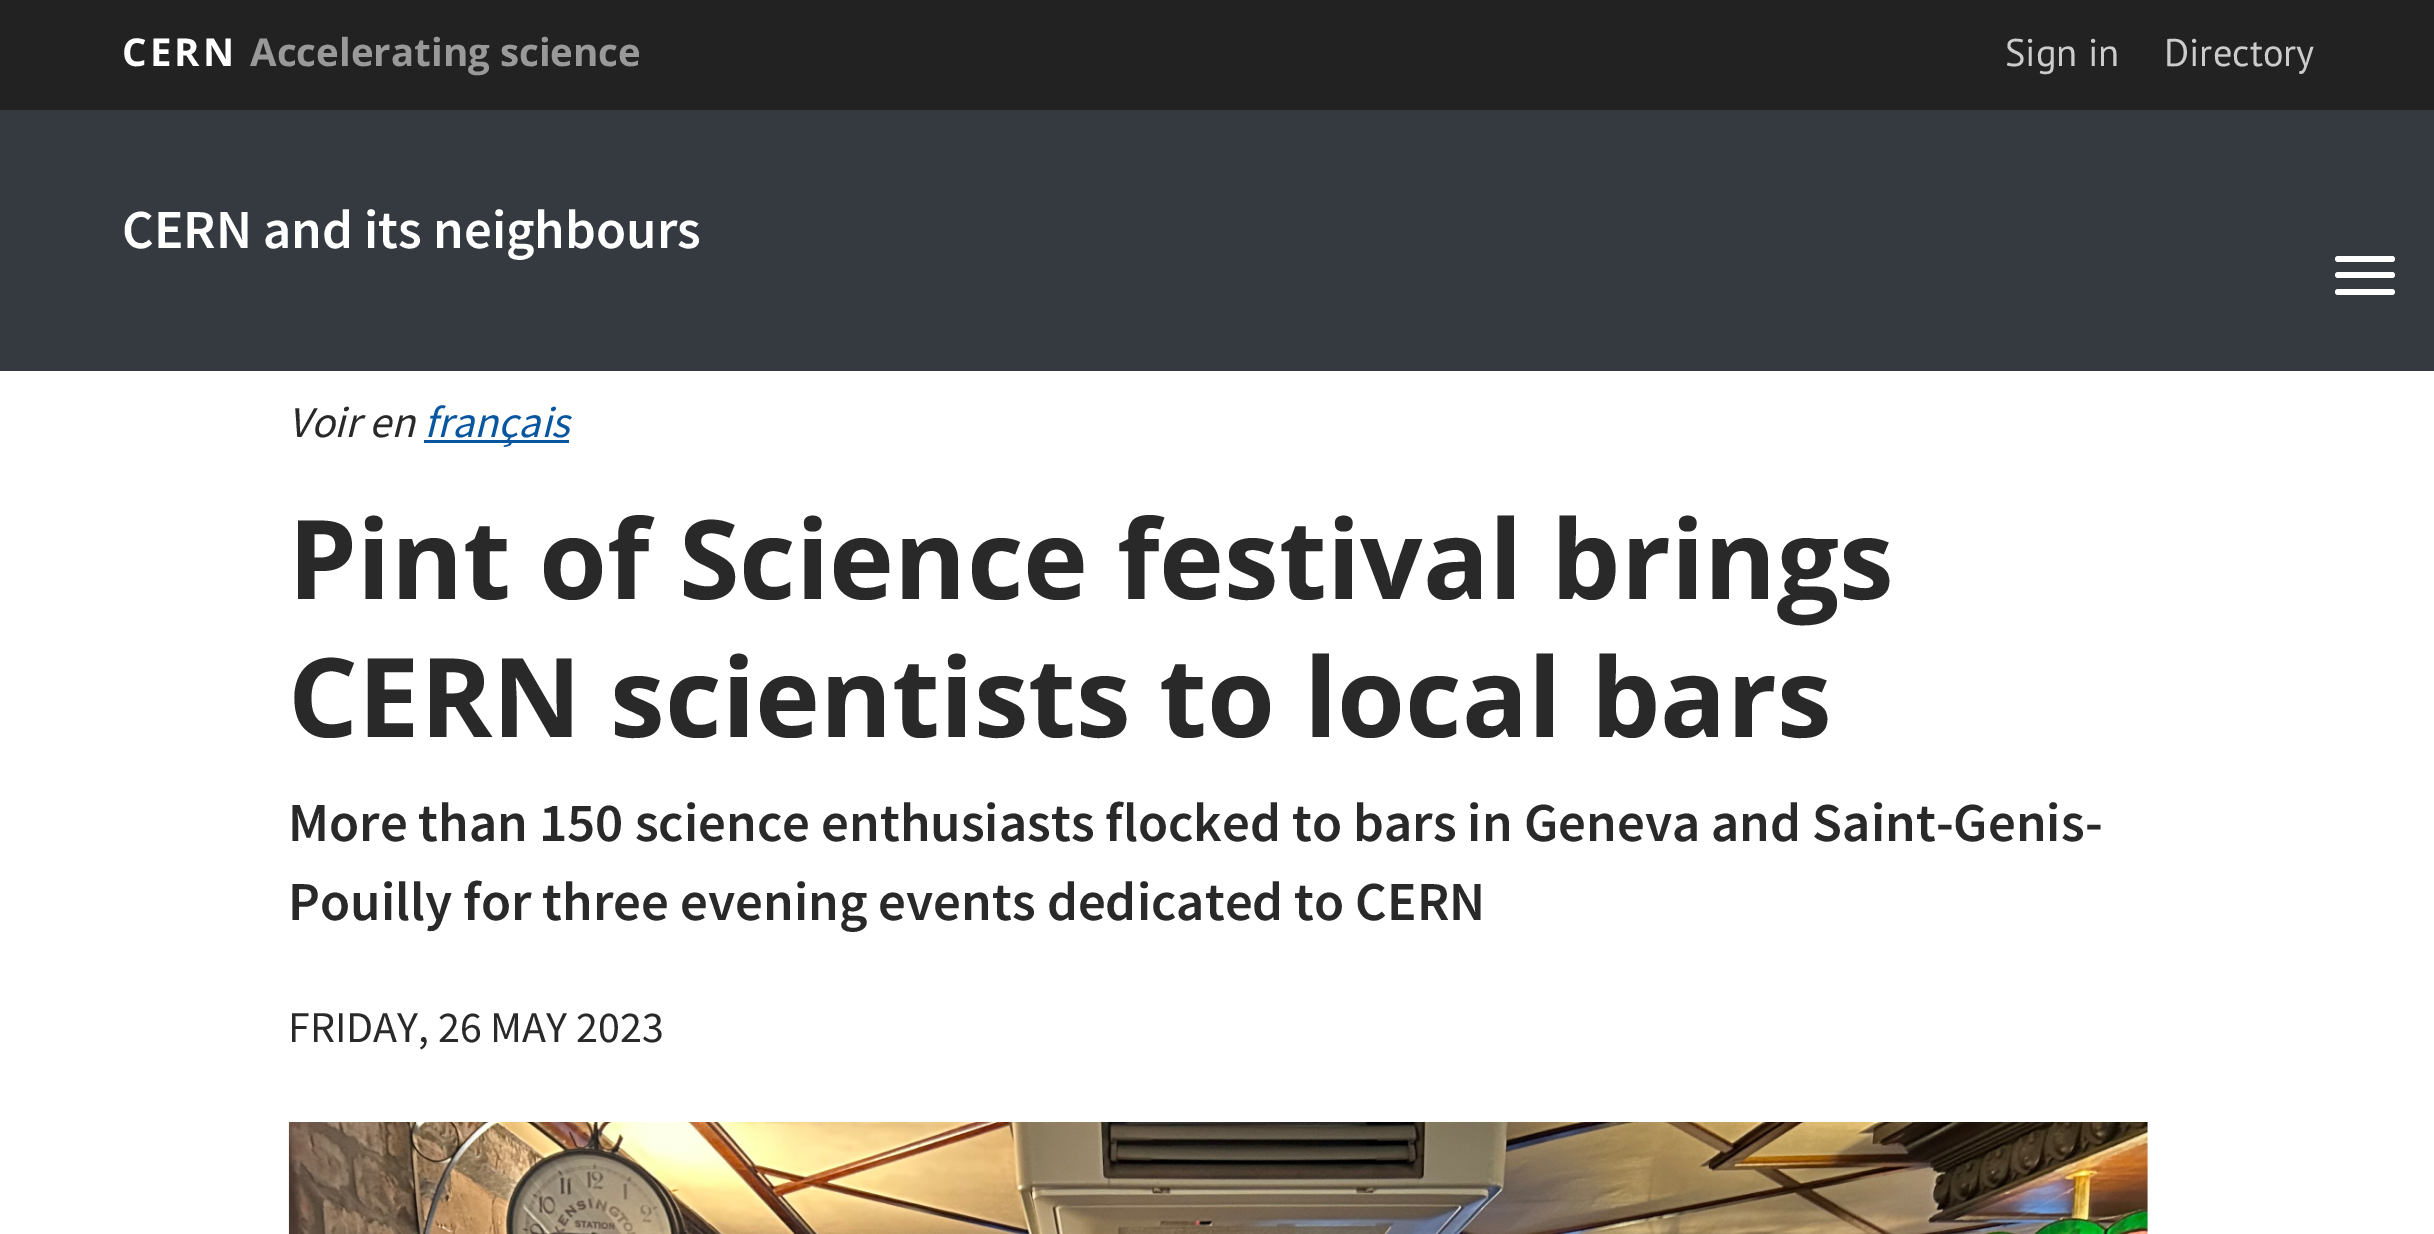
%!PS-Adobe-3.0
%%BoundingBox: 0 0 2434 1234
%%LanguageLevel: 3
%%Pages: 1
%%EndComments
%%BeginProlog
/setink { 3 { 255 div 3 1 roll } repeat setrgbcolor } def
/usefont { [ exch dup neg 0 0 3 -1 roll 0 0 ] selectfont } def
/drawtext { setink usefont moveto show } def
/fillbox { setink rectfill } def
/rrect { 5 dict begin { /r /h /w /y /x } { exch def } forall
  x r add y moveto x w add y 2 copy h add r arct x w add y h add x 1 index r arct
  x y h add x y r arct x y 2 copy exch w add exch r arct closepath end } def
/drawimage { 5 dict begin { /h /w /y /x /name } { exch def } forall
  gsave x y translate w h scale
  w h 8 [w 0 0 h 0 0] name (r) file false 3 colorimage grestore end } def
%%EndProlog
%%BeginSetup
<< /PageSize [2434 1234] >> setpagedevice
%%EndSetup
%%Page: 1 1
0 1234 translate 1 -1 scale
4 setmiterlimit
0 0 2434 1234 255 255 255 fillbox
0 0 2434 110 34 34 34 fillbox
/OpenSans-Bold 38.5 usefont
255 255 255 setink
122 66 moveto 3 0 (CERN) ashow
(Accelerating science) 250 66 /OpenSans-Bold 38.5 153 153 153 drawtext
(Sign in) 2005 66 /PTSans-Regular 38.5 204 204 204 drawtext
(Directory) 2164 66 /PTSans-Regular 38.5 204 204 204 drawtext
0 110 2434 261 52 58 64 fillbox
(CERN and its neighbours) 122 248 /SourceSansPro-SemiBold 55 255 255 255 drawtext
2335 256 60 6 3 rrect fill
2335 272 60 6 3 rrect fill
2335 289 60 6 3 rrect fill
(Voir en) 288 437 /SourceSansPro-Italic 44 41 41 41 drawtext
424 440 145 3 8 85 160 fillbox
(français) 424 437 /SourceSansPro-Italic 44 8 85 160 drawtext
(Pint of Science festival brings) 288 599 /OpenSans-Bold 110 41 41 41 drawtext
(CERN scientists to local bars) 288 737 /OpenSans-Bold 110 41 41 41 drawtext
(More than 150 science enthusiasts flocked to bars in Geneva and Saint-Genis-) 288 841 /SourceSansPro-SemiBold 55 41 41 41 drawtext
(Pouilly for three evening events dedicated to CERN) 288 920 /SourceSansPro-SemiBold 55 41 41 41 drawtext
(FRIDAY, 26 MAY 2023) 288 1042 /SourceSansPro-Regular 44 41 41 41 drawtext
(assets/img1.rgb) 288 1122 1860 112 drawimage
showpage
%%EOF
